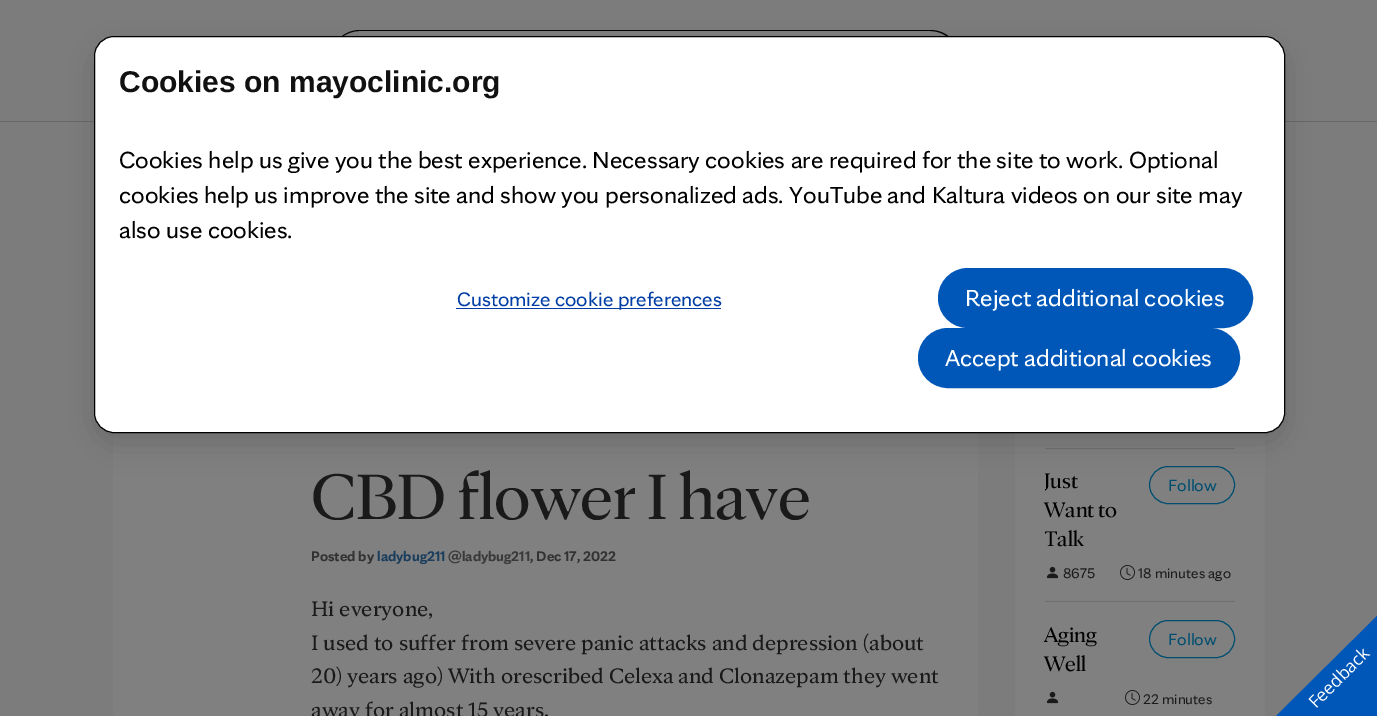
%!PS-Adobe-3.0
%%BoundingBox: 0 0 1377 716
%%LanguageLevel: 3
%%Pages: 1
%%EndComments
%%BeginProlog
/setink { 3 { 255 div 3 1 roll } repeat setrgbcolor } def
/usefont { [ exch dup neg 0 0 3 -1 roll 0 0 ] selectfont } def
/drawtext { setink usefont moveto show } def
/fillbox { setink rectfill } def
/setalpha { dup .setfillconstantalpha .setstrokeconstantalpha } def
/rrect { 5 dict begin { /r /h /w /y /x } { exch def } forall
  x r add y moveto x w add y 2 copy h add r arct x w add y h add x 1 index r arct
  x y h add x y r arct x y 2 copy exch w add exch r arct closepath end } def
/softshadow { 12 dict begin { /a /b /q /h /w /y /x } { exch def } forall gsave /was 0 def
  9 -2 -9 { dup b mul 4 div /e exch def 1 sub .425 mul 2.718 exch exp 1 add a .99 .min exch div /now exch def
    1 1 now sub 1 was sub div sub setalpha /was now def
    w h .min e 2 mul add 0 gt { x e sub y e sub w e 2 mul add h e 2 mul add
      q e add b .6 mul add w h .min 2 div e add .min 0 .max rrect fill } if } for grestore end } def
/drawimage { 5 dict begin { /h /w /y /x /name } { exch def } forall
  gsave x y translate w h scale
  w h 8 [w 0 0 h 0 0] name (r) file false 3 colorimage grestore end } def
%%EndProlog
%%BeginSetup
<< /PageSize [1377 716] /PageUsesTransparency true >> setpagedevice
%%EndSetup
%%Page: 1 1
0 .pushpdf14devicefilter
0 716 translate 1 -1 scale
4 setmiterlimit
0 0 1377 716 124 124 124 fillbox
0 121 1377 1 104 104 104 fillbox
128 128 128 setink
360 30 moveto 386 30 lineto 386 90 lineto 360 90 lineto 343.5 90 330 76.5 330 60 curveto 330 43.5 343.5 30 360 30 curveto closepath fill
4 4 4 setink
360 30 moveto 386 30 lineto 386 90 lineto 376 90 358 92 348 88 curveto 319 75 328 30 360 30 curveto closepath 360 31 moveto 386 31 lineto 386 89 lineto 376 89 358 90 349 86 curveto 320 74 329 31 360 31 curveto closepath eofill
128 128 128 setink
385 30 moveto 930 30 lineto 946.5 30 960 43.5 960 60 curveto 960 76.5 946.5 90 930 90 curveto 385 90 lineto closepath fill
4 4 4 setink
385 30 moveto 930 30 lineto 947 30 960 43 960 60 curveto 960 77 947 90 930 90 curveto 385 90 lineto closepath 385 31 moveto 930 31 lineto 946 31 959 44 959 60 curveto 959 76 946 89 930 89 curveto 385 89 lineto closepath eofill
113 432 865 284 128 128 128 fillbox
1015 433 250 283 128 128 128 fillbox
1045 448 190 1 111 111 111 fillbox
0 78 111 setink
1149.5 466.5 85 37 18.5 rrect stroke
0 0 0 setink
94 46 1191 397 20 15 0.16 softshadow
255 255 255 setink
94.5 36.5 1190 396 19.5 rrect gsave fill grestore
0 0 0 setink
stroke
(Cookies on mayoclinic.org) 119 92 /LiberationSans-Bold 30 17 17 17 drawtext
(Cookies help us give you the best experience. Necessary cookies are required for the site to work. Optional) 119 168 /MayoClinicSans-Regular 25 0 0 0 drawtext
(cookies help us improve the site and show you personalized ads. YouTube and Kaltura videos on our site may) 119 203 /MayoClinicSans-Regular 25 0 0 0 drawtext
(also use cookies.) 119 238 /MayoClinicSans-Regular 25 0 0 0 drawtext
456 308 265 1 0 61 165 fillbox
(Customize cookie preferences) 457 306 /MayoClinicSans-Regular 21 0 61 165 drawtext
0 87 184 setink
939.5 269.5 312 57 28.5 rrect gsave fill grestore
3 setlinewidth
stroke
(Reject additional cookies) 965 306 /MayoClinicSans-Regular 25 255 255 255 drawtext
0 87 184 setink
919.5 329.5 319 57 28.5 rrect gsave fill grestore
stroke
(Accept additional cookies) 945 366 /MayoClinicSans-Regular 25 255 255 255 drawtext
(CBD flower I have) 311 519 /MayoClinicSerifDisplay-Regular 68.75 26 26 26 drawtext
(Posted by) 311 561 /MayoClinicSans-Bold 15 50 50 50 drawtext
(ladybug211) 377 561 /MayoClinicSans-Bold 15 26 61 92 drawtext
(@ladybug211) 448 561 /MayoClinicSans-Bold 15 57 57 57 drawtext
(, Dec 17, 2022) 530 561 /MayoClinicSans-Bold 15 50 50 50 drawtext
(Hi everyone,) 311 616 /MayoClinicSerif-Regular 22.5 26 26 26 drawtext
(I used to suffer from severe panic attacks and depression \(about) 311 650 /MayoClinicSerif-Regular 22.5 26 26 26 drawtext
(20\) years ago\) With orescribed Celexa and Clonazepam they went) 311 683 /MayoClinicSerif-Regular 22.5 26 26 26 drawtext
(away for almost 15 years.) 311 717 /MayoClinicSerif-Regular 22.5 26 26 26 drawtext
gsave
1045 466 79 87 rectclip
(Just) 1044 488 /MayoClinicSerifDisplay-Regular 22.5 0 0 0 drawtext
grestore
(Want to) 1044 517 /MayoClinicSerifDisplay-Regular 22.5 0 0 0 drawtext
gsave
1045 466 79 87 rectclip
(Talk) 1044 546 /MayoClinicSerifDisplay-Regular 22.5 0 0 0 drawtext
grestore
(Follow) 1168 491 /MayoClinicSans-Regular 17.5 0 78 111 drawtext
(assets/img1.rgb) 1046 566 13 13 drawimage
(8675) 1063 578 /MayoClinicSans-Regular 15 26 26 26 drawtext
(assets/img2.rgb) 1120 565 15 15 drawimage
(18 minutes ago) 1138 578 /MayoClinicSans-Regular 15 26 26 26 drawtext
1045 601 190 1 111 111 111 fillbox
(Aging) 1044 642 /MayoClinicSerifDisplay-Regular 22.5 0 0 0 drawtext
(Well) 1044 671 /MayoClinicSerifDisplay-Regular 22.5 0 0 0 drawtext
0 78 111 setink
1 setlinewidth
1149.5 620.5 85 37 18.5 rrect stroke
(Follow) 1168 645 /MayoClinicSans-Regular 17.5 0 78 111 drawtext
(assets/img1.rgb) 1046 691 13 13 drawimage
(assets/img2.rgb) 1125 690 15 15 drawimage
(22 minutes) 1143 704 /MayoClinicSans-Regular 15 26 26 26 drawtext
0 87 184 setink
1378 716 moveto 1276 716 lineto 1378 615 lineto closepath fill
/OpenSans-Regular 17.5 usefont
255 255 255 setink
gsave 1316 709 translate -45 rotate 0 0 moveto (Feedback) show grestore
.poppdf14devicefilter showpage
%%EOF
